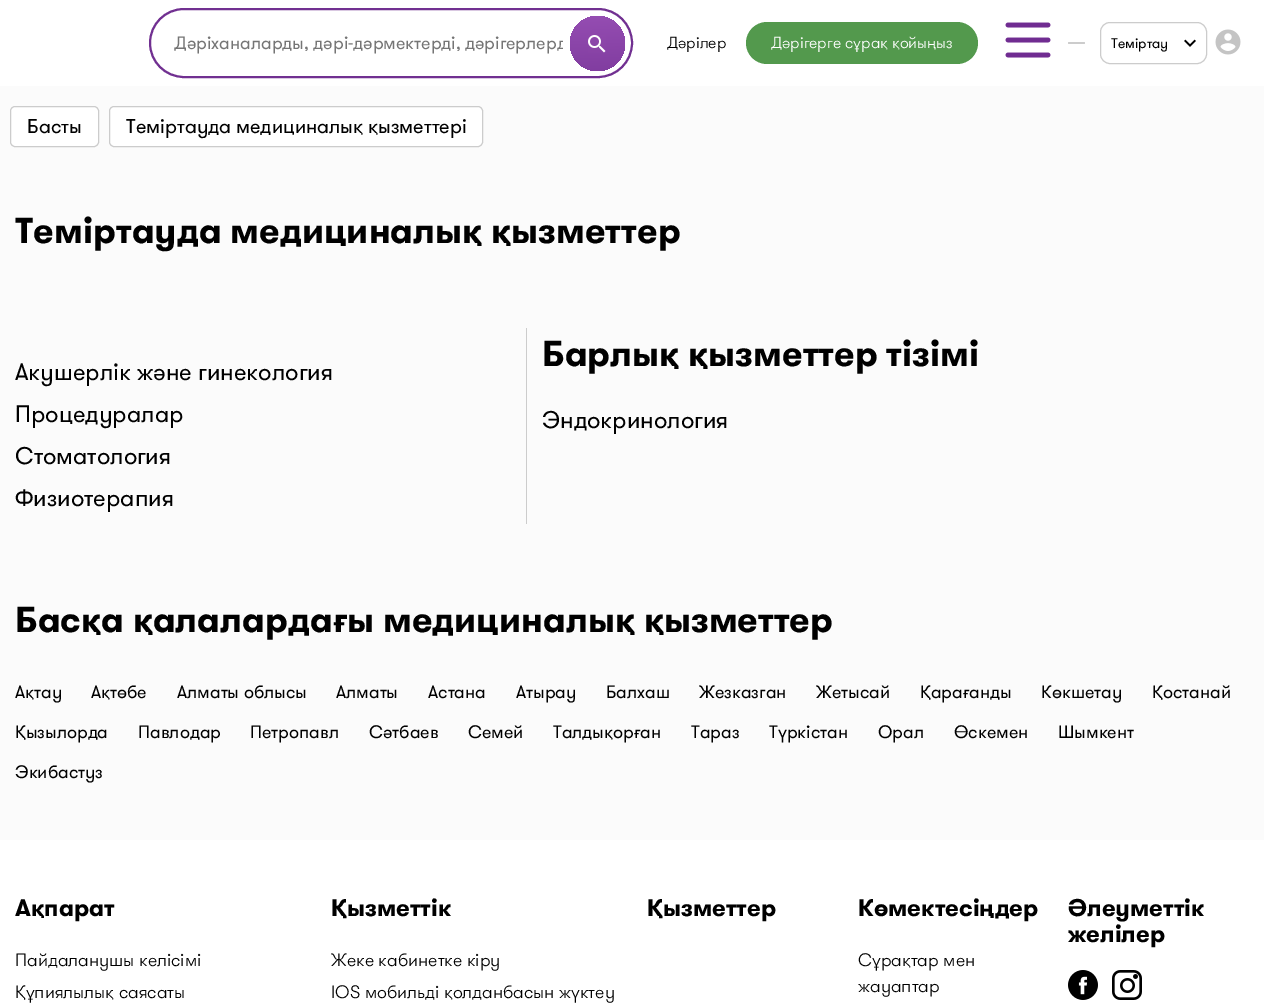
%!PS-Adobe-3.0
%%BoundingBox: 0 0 1264 1006
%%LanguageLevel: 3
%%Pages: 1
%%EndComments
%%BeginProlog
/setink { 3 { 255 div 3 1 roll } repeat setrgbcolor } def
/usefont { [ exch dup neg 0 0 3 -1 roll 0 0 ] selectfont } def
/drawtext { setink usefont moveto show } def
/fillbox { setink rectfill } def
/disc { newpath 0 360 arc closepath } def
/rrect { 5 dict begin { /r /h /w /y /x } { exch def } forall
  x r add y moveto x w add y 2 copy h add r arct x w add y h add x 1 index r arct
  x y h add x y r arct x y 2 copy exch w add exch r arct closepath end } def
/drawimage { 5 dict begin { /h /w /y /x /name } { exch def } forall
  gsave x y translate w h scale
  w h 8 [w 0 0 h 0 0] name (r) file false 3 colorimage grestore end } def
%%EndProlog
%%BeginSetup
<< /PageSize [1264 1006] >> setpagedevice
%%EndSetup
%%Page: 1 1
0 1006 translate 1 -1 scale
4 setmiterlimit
0 0 1264 1006 251 251 251 fillbox
0 0 1264 86 255 255 255 fillbox
113 48 145 setink
2 setlinewidth
150 9 482 68 34 rrect stroke
gsave
174 30 389 26 rectclip
(Дәріханаларды, дәрі-дәрмектерді, дәрігерлерд) 174 49 /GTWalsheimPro-Regular 18 117 117 117 drawtext
grestore
gsave 597.5 43.5 27.5 disc clip newpath
<< /ShadingType 2 /ColorSpace /DeviceRGB /Coords [595 -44 600 119] /Extend [true true] /Function << /FunctionType 2 /Domain [0 1] /C0 [0.667 0.369 0.769] /C1 [0.443 0.188 0.569] /N 1 >> >> shfill grestore
(assets/img1.rgb) 588 35 18 18 drawimage
(Дәрілер) 667 48 /GTWalsheimPro-Light 16 0 0 0 drawtext
83 153 77 setink
746 22 232 42 21 rrect fill
(Дәрігерге сұрақ қойыңыз) 771 48 /GTWalsheimPro-Light 16 255 255 255 drawtext
(assets/img2.rgb) 1005 22 46 36 drawimage
204 204 204 setink
1068 42 17 2 1 rrect fill
1 setlinewidth
1100.5 22.5 106 41 9.5 rrect stroke
(Теміртау) 1111 48 /GTWalsheimPro-Regular 14 0 0 0 drawtext
(assets/img3.rgb) 1184 39 12 8 drawimage
(assets/img4.rgb) 1215 29 26 26 drawimage
255 255 255 setink
10.5 106.5 88 40 4.5 rrect gsave fill grestore
204 204 204 setink
stroke
(Басты) 27 133 /GTWalsheimPro-Regular 20 0 0 0 drawtext
255 255 255 setink
109.5 106.5 373 40 4.5 rrect gsave fill grestore
204 204 204 setink
stroke
(Теміртауда медициналық қызметтері) 126 133 /GTWalsheimPro-Regular 20 0 0 0 drawtext
(Теміртауда медициналық қызметтер) 15 243 /GTWalsheimPro-Bold 36 0 0 0 drawtext
526 328 1 196 204 204 204 fillbox
(Акушерлік және гинекология) 15 380 /GTWalsheimPro-Regular 24 0 0 0 drawtext
(Процедуралар) 15 422 /GTWalsheimPro-Regular 24 0 0 0 drawtext
(Стоматология) 15 464 /GTWalsheimPro-Regular 24 0 0 0 drawtext
(Физиотерапия) 15 506 /GTWalsheimPro-Regular 24 0 0 0 drawtext
(Барлық қызметтер тізімі) 542 366 /GTWalsheimPro-Bold 36 0 0 0 drawtext
(Эндокринология) 542 428 /GTWalsheimPro-Regular 24 0 0 0 drawtext
(Басқа қалалардағы медициналық қызметтер) 15 632 /GTWalsheimPro-Bold 36 0 0 0 drawtext
(Ақтау) 15 698 /GTWalsheimPro-Regular 18 0 0 0 drawtext
(Ақтөбе) 91 698 /GTWalsheimPro-Regular 18 0 0 0 drawtext
(Алматы облысы) 177 698 /GTWalsheimPro-Regular 18 0 0 0 drawtext
(Алматы) 336 698 /GTWalsheimPro-Regular 18 0 0 0 drawtext
(Астана) 428 698 /GTWalsheimPro-Regular 18 0 0 0 drawtext
(Атырау) 516 698 /GTWalsheimPro-Regular 18 0 0 0 drawtext
(Балхаш) 606 698 /GTWalsheimPro-Regular 18 0 0 0 drawtext
(Жезказган) 699 698 /GTWalsheimPro-Regular 18 0 0 0 drawtext
(Жетысай) 816 698 /GTWalsheimPro-Regular 18 0 0 0 drawtext
(Қарағанды) 920 698 /GTWalsheimPro-Regular 18 0 0 0 drawtext
(Көкшетау) 1041 698 /GTWalsheimPro-Regular 18 0 0 0 drawtext
(Қостанай) 1152 698 /GTWalsheimPro-Regular 18 0 0 0 drawtext
(Қызылорда) 15 738 /GTWalsheimPro-Regular 18 0 0 0 drawtext
(Павлодар) 138 738 /GTWalsheimPro-Regular 18 0 0 0 drawtext
(Петропавл) 250 738 /GTWalsheimPro-Regular 18 0 0 0 drawtext
(Сәтбаев) 369 738 /GTWalsheimPro-Regular 18 0 0 0 drawtext
(Семей) 468 738 /GTWalsheimPro-Regular 18 0 0 0 drawtext
(Талдықорған) 553 738 /GTWalsheimPro-Regular 18 0 0 0 drawtext
(Тараз) 691 738 /GTWalsheimPro-Regular 18 0 0 0 drawtext
(Түркістан) 769 738 /GTWalsheimPro-Regular 18 0 0 0 drawtext
(Орал) 878 738 /GTWalsheimPro-Regular 18 0 0 0 drawtext
(Өскемен) 954 738 /GTWalsheimPro-Regular 18 0 0 0 drawtext
(Шымкент) 1058 738 /GTWalsheimPro-Regular 18 0 0 0 drawtext
(Экибастуз) 15 778 /GTWalsheimPro-Regular 18 0 0 0 drawtext
0 840 1264 166 255 255 255 fillbox
(Ақпарат) 15 916 /GTWalsheimPro-Bold 24 0 0 0 drawtext
(Пайдаланушы келісімі) 15 966 /GTWalsheimPro-Light 18 0 0 0 drawtext
(Құпиялылық саясаты) 15 998 /GTWalsheimPro-Light 18 0 0 0 drawtext
(Қызметтік) 331 916 /GTWalsheimPro-Bold 24 0 0 0 drawtext
(Жеке кабинетке кіру) 331 966 /GTWalsheimPro-Light 18 0 0 0 drawtext
(IOS мобильді қолданбасын жүктеу) 331 998 /GTWalsheimPro-Light 18 0 0 0 drawtext
(Қызметтер) 647 916 /GTWalsheimPro-Bold 24 0 0 0 drawtext
(Көмектесіңдер) 858 916 /GTWalsheimPro-Bold 24 0 0 0 drawtext
(Сұрақтар мен) 858 966 /GTWalsheimPro-Light 18 0 0 0 drawtext
(жауаптар) 858 992 /GTWalsheimPro-Light 18 0 0 0 drawtext
(Әлеуметтік) 1068 916 /GTWalsheimPro-Bold 24 0 0 0 drawtext
(желілер) 1068 942 /GTWalsheimPro-Bold 24 0 0 0 drawtext
(assets/img5.rgb) 1068 970 30 30 drawimage
(assets/img6.rgb) 1112 970 30 30 drawimage
showpage
%%EOF
